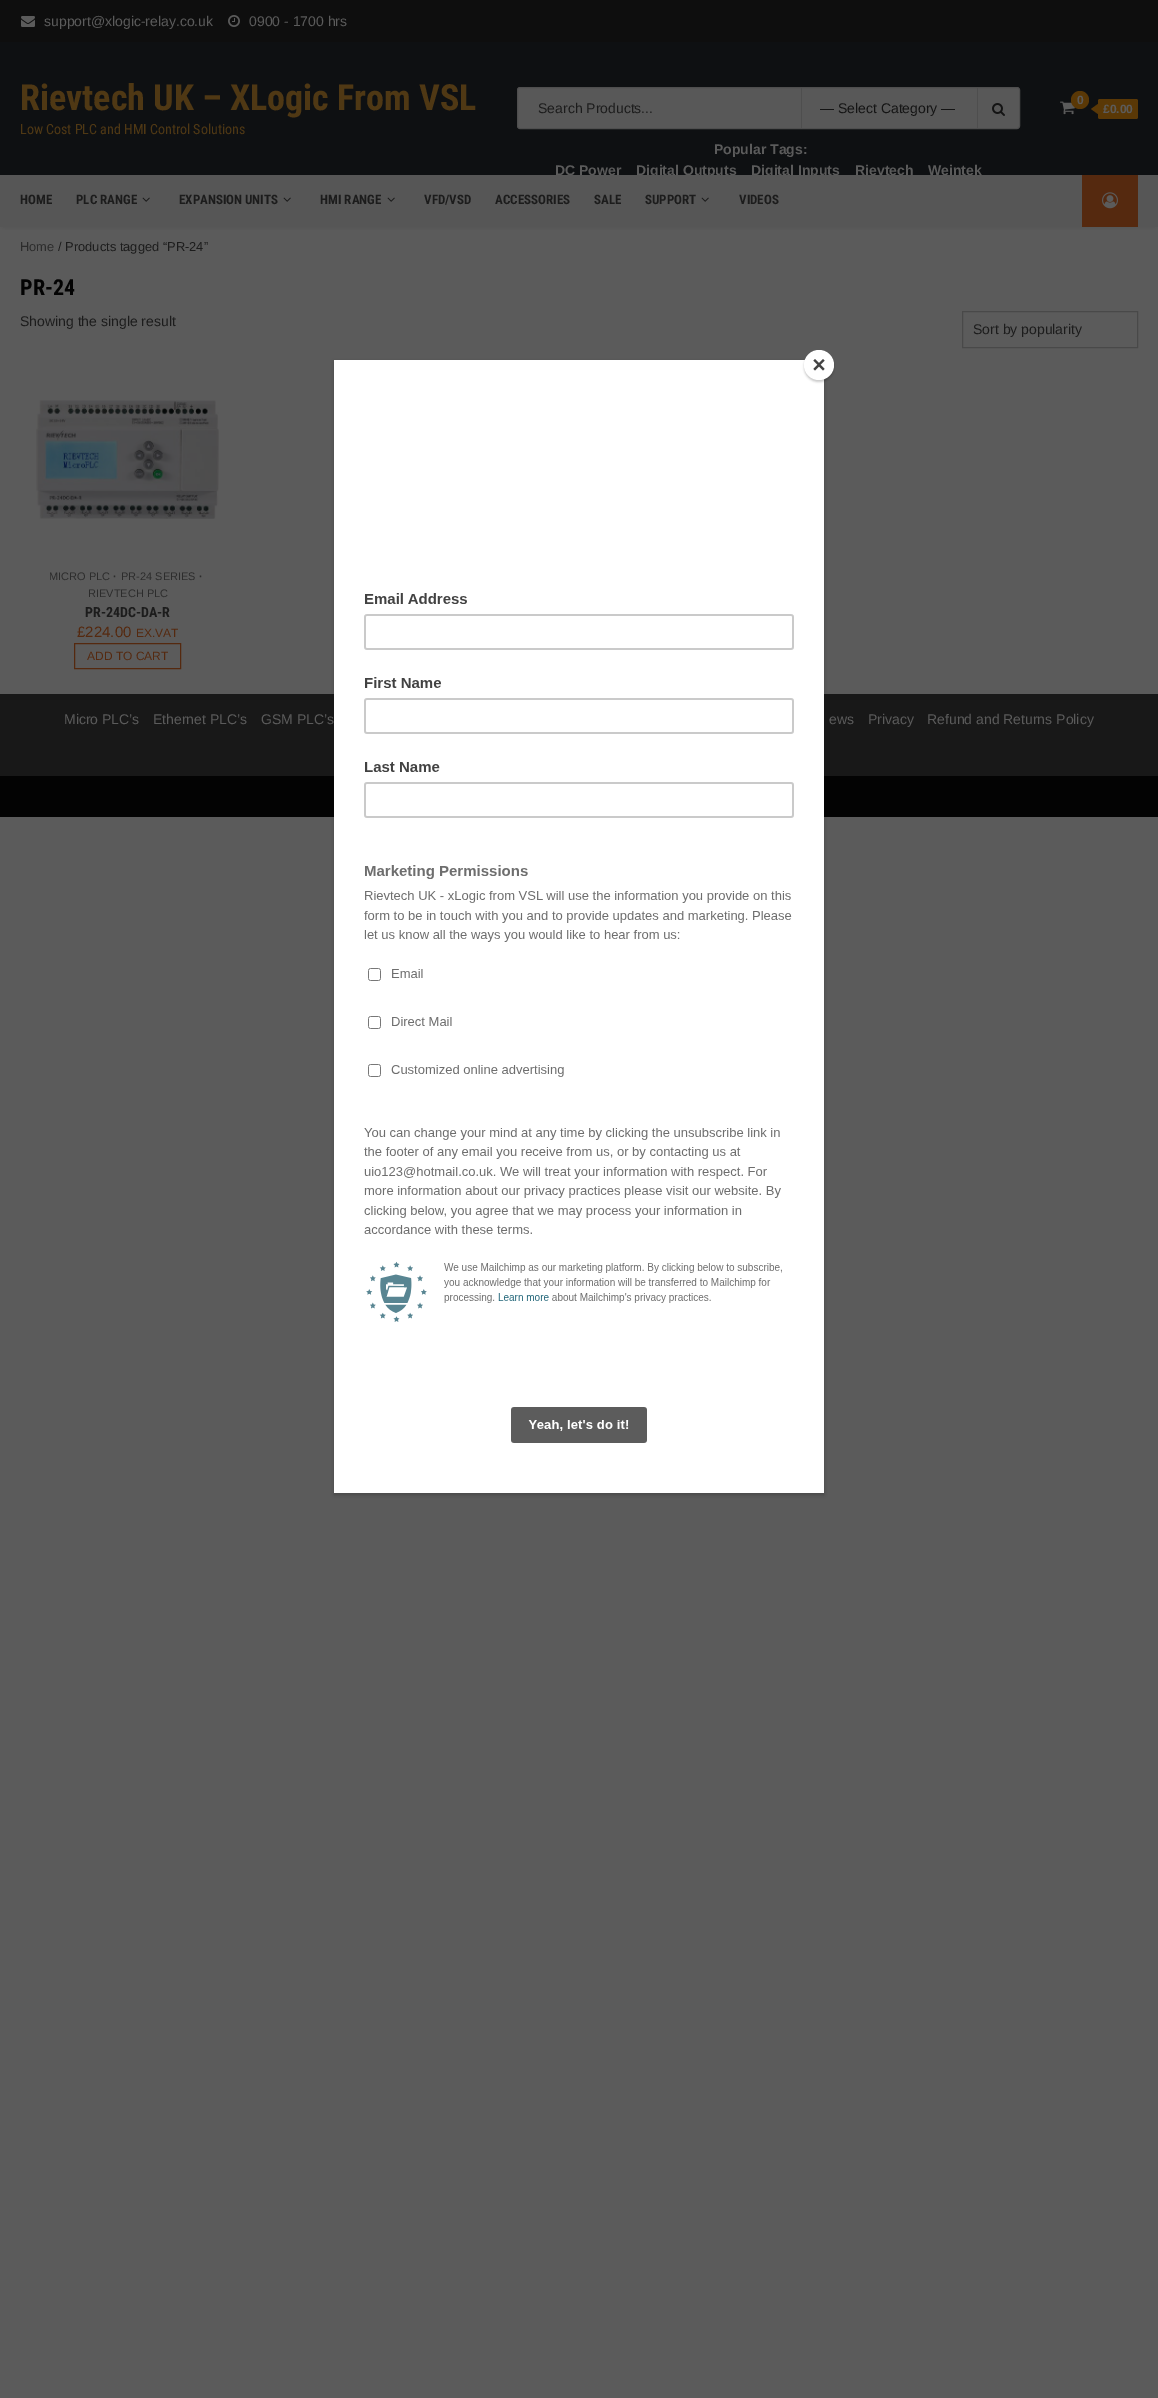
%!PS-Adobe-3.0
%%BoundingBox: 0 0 1158 2398
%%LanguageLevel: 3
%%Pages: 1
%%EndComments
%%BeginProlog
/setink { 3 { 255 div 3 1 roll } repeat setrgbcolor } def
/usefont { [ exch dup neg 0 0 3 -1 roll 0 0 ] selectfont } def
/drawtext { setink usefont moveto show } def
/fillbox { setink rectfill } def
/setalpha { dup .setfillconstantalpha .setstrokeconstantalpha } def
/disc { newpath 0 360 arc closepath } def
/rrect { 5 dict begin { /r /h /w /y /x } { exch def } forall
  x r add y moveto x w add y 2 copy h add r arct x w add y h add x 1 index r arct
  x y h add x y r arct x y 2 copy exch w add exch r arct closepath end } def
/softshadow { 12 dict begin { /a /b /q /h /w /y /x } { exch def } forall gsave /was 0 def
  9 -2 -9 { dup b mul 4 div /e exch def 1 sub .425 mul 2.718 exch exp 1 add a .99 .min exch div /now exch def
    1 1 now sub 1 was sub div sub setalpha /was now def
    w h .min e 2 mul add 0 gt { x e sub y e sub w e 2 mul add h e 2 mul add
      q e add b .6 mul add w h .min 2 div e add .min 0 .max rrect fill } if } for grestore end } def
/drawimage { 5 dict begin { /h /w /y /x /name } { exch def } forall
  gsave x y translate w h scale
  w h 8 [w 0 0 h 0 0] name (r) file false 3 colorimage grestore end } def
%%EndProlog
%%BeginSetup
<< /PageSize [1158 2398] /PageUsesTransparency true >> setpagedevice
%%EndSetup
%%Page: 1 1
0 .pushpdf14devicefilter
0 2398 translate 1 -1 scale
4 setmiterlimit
0 0 1158 2398 91 91 91 fillbox
0 0 1158 42 14 14 14 fillbox
(assets/img1.rgb) 21 16 14 11 drawimage
(support@xlogic-relay.co.uk) 44 26 /LiberationSans-Regular 14 91 91 91 drawtext
(assets/img2.rgb) 228 15 12 12 drawimage
(0900 - 1700 hrs) 249 26 /LiberationSans-Regular 14 91 91 91 drawtext
0 42 1158 133 14 16 18 fillbox
(Rievtech UK – XLogic From VSL) 20 110 /RobotoCondensed-Bold 36 79 56 20 drawtext
(Low Cost PLC and HMI Control Solutions) 20 134 /RobotoCondensed-Regular 14 79 56 20 drawtext
88 88 88 setink
517.5 87.5 502 41 2.5 rrect gsave fill grestore
78 78 78 setink
stroke
(Search Products...) 538 113 /LiberationSans-Regular 14 28 28 28 drawtext
801 88 1 40 78 78 78 fillbox
(— Select Category —) 820 113 /LiberationSans-Regular 14 20 20 20 drawtext
977 88 1 40 78 78 78 fillbox
(assets/img3.rgb) 992 103 13 13 drawimage
(Popular Tags:) 714 154 /LiberationSans-Bold 14 91 91 91 drawtext
(DC Power) 555 175 /LiberationSans-Bold 14 91 91 91 drawtext
(Digital Outputs) 636 175 /LiberationSans-Bold 14 91 91 91 drawtext
(Digital Inputs) 751 175 /LiberationSans-Bold 14 91 91 91 drawtext
(Rievtech) 855 175 /LiberationSans-Bold 14 91 91 91 drawtext
(Weintek) 928 175 /LiberationSans-Bold 14 91 91 91 drawtext
(assets/img4.rgb) 1060 101 15 14 drawimage
90 56 6 setink
1080 100 9 disc fill
(0) 1077 104 /LiberationSans-Bold 12 91 91 91 drawtext
90 56 6 setink
1098 99 40 20 2 rrect fill
1098 104 moveto 1098 114 lineto 1091 109 lineto closepath fill
(£0.00) 1103 113 /LiberationSans-Bold 12 91 91 91 drawtext
3 3 3 setink
4 181 1150 44 0 2.5 0.3 softshadow
0 175 1158 52 86 86 86 fillbox
(HOME) 20 204 /RobotoCondensed-Bold 13 28 28 28 drawtext
(PLC RANGE) 76 204 /RobotoCondensed-Bold 13 28 28 28 drawtext
(assets/img5.rgb) 142 197 8 5 drawimage
(EXPANSION UNITS) 179 204 /RobotoCondensed-Bold 13 28 28 28 drawtext
(assets/img5.rgb) 283 197 8 5 drawimage
(HMI RANGE) 320 204 /RobotoCondensed-Bold 13 28 28 28 drawtext
(assets/img5.rgb) 387 197 8 5 drawimage
(VFD/VSD) 424 204 /RobotoCondensed-Bold 13 28 28 28 drawtext
(ACCESSORIES) 495 204 /RobotoCondensed-Bold 13 28 28 28 drawtext
(SALE) 594 204 /RobotoCondensed-Bold 13 28 28 28 drawtext
(SUPPORT) 645 204 /RobotoCondensed-Bold 13 28 28 28 drawtext
(assets/img5.rgb) 701 197 8 5 drawimage
(VIDEOS) 739 204 /RobotoCondensed-Bold 13 28 28 28 drawtext
1082 175 56 52 85 41 15 fillbox
(assets/img6.rgb) 1102 192 16 17 drawimage
(Home) 20 251 /LiberationSans-Regular 12.9 44 44 44 drawtext
(/ Products tagged “PR-24”) 58 251 /LiberationSans-Regular 12.9 28 28 28 drawtext
(PR-24) 20 295 /RobotoCondensed-Bold 22 3 3 3 drawtext
(Showing the single result) 20 326 /LiberationSans-Regular 14 28 28 28 drawtext
73 73 73 setink
962.5 311.5 175 36 rectstroke
(Sort by popularity) 973 334 /LiberationSans-Regular 14 28 28 28 drawtext
(assets/img7.rgb) 36 400 183 119 drawimage
(MICRO PLC) 49 580 /LiberationSans-Regular 11 44 44 44 drawtext
(∙) 113 580 /LiberationSans-Bold 11 44 44 44 drawtext
(PR-24 SERIES) 121 580 /LiberationSans-Regular 11 44 44 44 drawtext
(∙) 199 580 /LiberationSans-Bold 11 44 44 44 drawtext
(RIEVTECH PLC) 88 597 /LiberationSans-Regular 11 44 44 44 drawtext
(PR-24DC-DA-R) 85 617 /RobotoCondensed-Bold 14 28 28 28 drawtext
(£224.00) 77 637 /LiberationSans-Regular 15 85 41 15 drawtext
(EX.VAT) 136 637 /LiberationSans-Regular 12 85 41 15 drawtext
74.5 643.5 106 25 rectstroke
(ADD TO CART) 87 660 /LiberationSans-Regular 12 85 41 15 drawtext
0 694 1158 82 24 24 24 fillbox
(Micro PLC’s) 64 724 /LiberationSans-Regular 14 91 91 91 drawtext
(Ethernet PLC’s) 153 724 /LiberationSans-Regular 14 91 91 91 drawtext
(GSM PLC’s) 261 724 /LiberationSans-Regular 14 91 91 91 drawtext
(ews) 829 724 /LiberationSans-Regular 14 91 91 91 drawtext
(Privacy) 868 724 /LiberationSans-Regular 14 91 91 91 drawtext
(Refund and Returns Policy) 927 724 /LiberationSans-Regular 14 91 91 91 drawtext
0 776 1158 41 3 3 3 fillbox
334 362 490 1133 0 2 0.2 softshadow
(assets/img8.rgb) 334 360 490 1133 drawimage
804 352 30 30 15 1 0.2 softshadow
255 255 255 setink
819 365 15 disc fill
67 67 67 setink
823 359 moveto 824.5 360.5 lineto 815 370.5 lineto 813.5 369 lineto closepath fill
813.5 360.5 moveto 815 359 lineto 824.5 369 lineto 823 370.5 lineto closepath fill
.poppdf14devicefilter showpage
%%EOF
